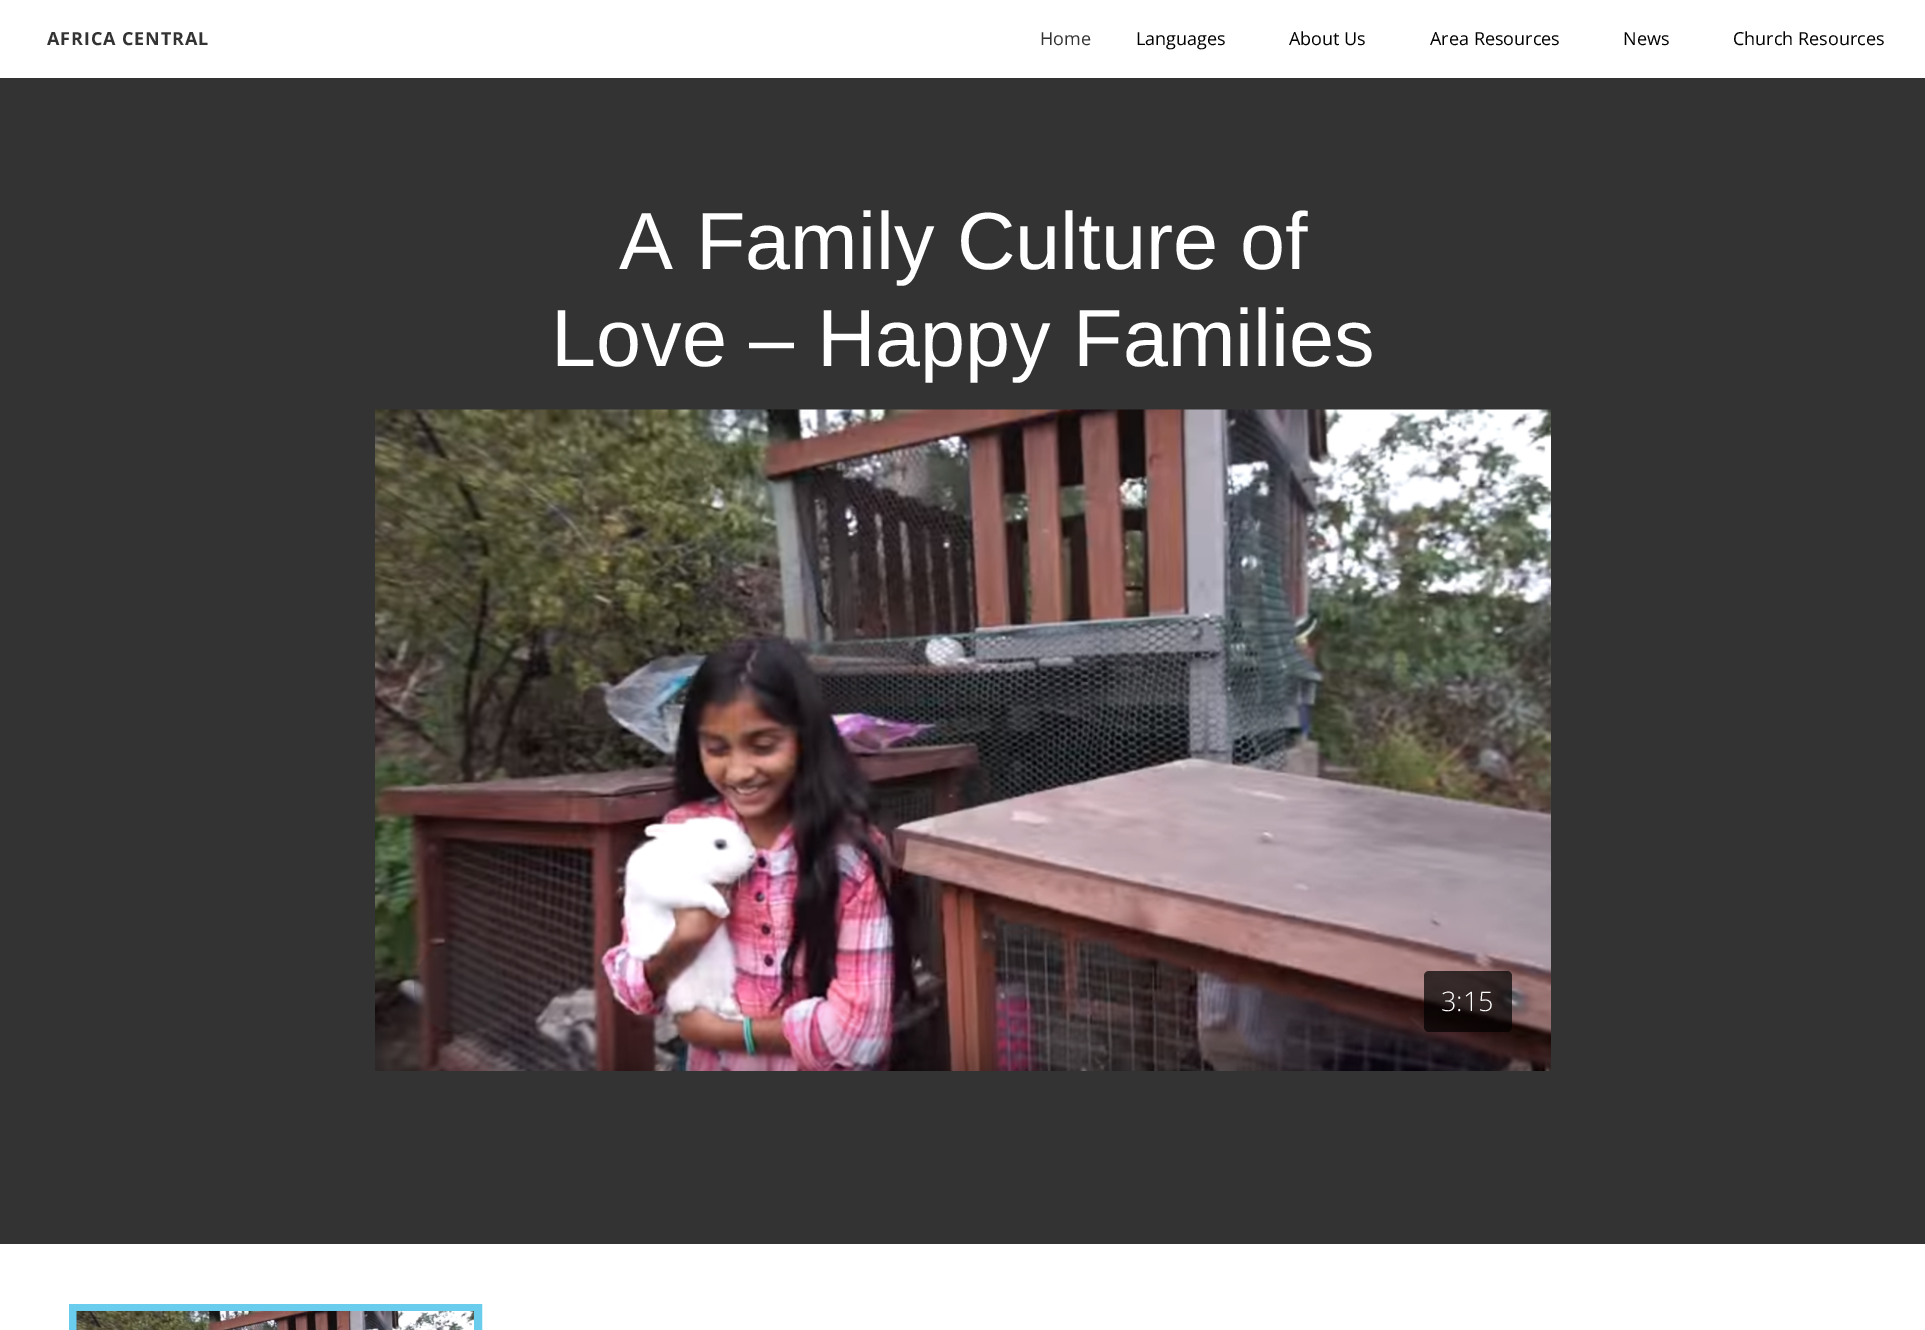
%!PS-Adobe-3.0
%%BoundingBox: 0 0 1925 1330
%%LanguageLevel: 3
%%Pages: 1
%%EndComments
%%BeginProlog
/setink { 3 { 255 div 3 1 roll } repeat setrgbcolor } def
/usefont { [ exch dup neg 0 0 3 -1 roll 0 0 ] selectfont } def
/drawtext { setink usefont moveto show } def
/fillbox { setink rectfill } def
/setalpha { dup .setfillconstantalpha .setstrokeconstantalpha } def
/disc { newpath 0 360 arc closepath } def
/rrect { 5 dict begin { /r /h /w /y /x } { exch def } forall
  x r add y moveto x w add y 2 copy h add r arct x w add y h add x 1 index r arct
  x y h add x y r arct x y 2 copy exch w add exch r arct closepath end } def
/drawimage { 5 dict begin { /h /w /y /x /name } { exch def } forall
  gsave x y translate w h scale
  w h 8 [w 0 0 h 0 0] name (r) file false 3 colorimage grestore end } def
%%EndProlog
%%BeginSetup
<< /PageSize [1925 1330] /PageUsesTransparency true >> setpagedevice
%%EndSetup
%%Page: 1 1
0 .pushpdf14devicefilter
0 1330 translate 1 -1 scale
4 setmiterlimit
0 0 1925 1330 255 255 255 fillbox
/OpenSans-Bold 18 usefont
51 51 51 setink
47 45 moveto 0.9 0 (AFRICA CENTRAL) ashow
(Home) 1040 45 /OpenSans-Regular 18 51 51 51 drawtext
(Languages) 1136 45 /OpenSans-Regular 18 0 0 0 drawtext
(About Us) 1289 45 /OpenSans-Regular 18 0 0 0 drawtext
(Area Resources) 1430 45 /OpenSans-Regular 18 0 0 0 drawtext
(News) 1623 45 /OpenSans-Regular 18 0 0 0 drawtext
(Church Resources) 1733 45 /OpenSans-Regular 18 0 0 0 drawtext
0 78 1925 1166 51 51 51 fillbox
(A Family Culture of) 619 269 /LiberationSans-Regular 81 255 255 255 drawtext
(Love – Happy Families) 551 366 /LiberationSans-Regular 81 255 255 255 drawtext
(assets/img1.rgb) 375 409 1176 662 drawimage
0.3 setalpha
51 51 51 setink
459 987 45 disc fill
0.7 setalpha
0 0 0 setink
1424 971 88 61 5 rrect fill
1 setalpha
(3:15) 1441 1011 /OpenSans-Light 27 255 255 255 drawtext
107 205 237 setink
8 setlinewidth
73 1308 405 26 rectstroke
(assets/img2.rgb) 76 1311 398 19 drawimage
.poppdf14devicefilter showpage
%%EOF
